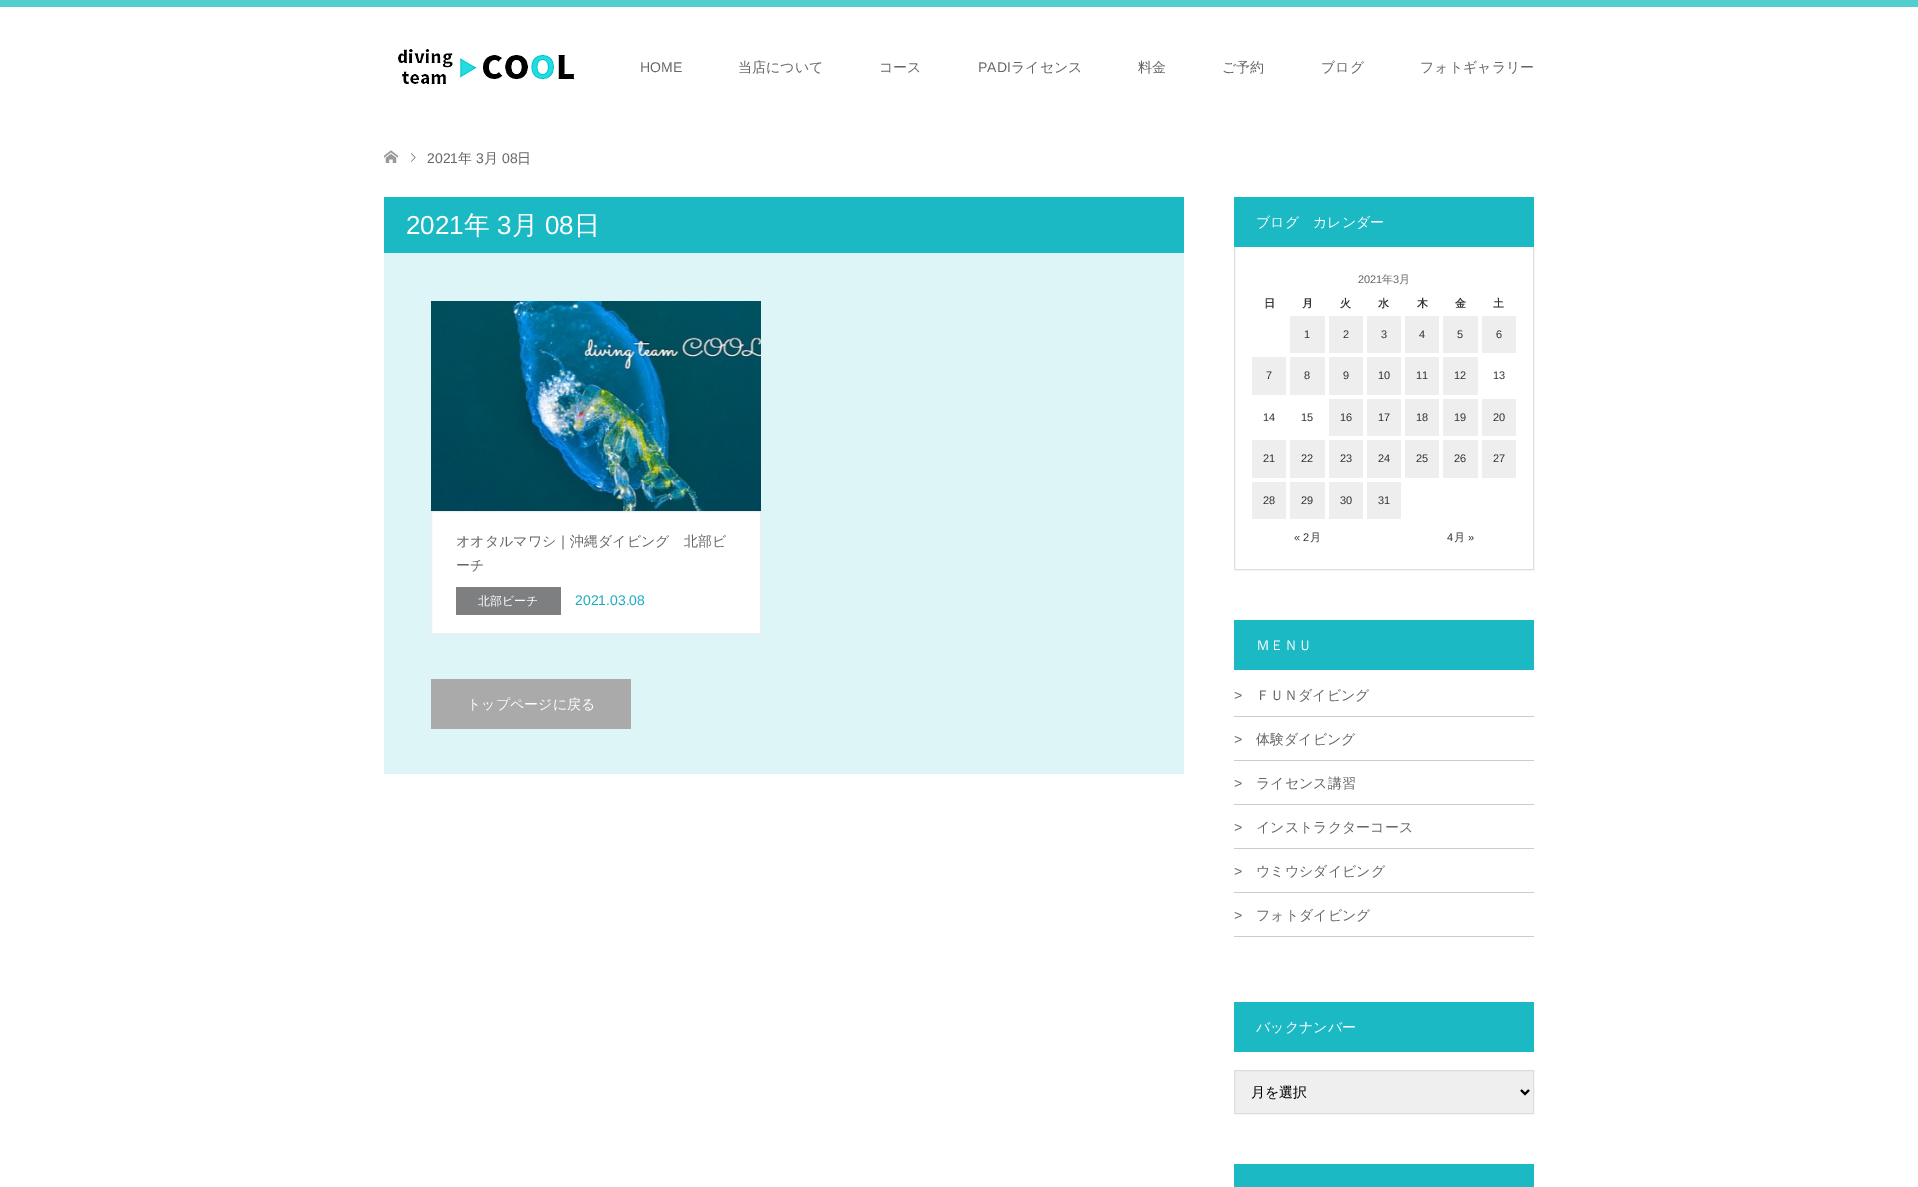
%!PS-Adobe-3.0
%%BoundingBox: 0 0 1918 1187
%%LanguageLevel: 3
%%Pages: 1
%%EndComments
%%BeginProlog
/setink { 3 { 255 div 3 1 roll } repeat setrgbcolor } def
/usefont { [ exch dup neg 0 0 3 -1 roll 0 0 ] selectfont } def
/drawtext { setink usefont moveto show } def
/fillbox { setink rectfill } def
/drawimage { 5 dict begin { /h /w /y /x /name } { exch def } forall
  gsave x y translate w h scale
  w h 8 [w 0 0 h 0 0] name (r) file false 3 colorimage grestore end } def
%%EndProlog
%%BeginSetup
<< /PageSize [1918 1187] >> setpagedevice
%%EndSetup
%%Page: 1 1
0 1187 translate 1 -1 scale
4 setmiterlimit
0 0 1918 1187 255 255 255 fillbox
0 0 1918 7 82 206 206 fillbox
(assets/img1.rgb) 398 49 177 35 drawimage
(HOME) 640 72 /LiberationSans-Regular 14 102 102 102 drawtext
(当店について) 738 72 /WenQuanYiZenHei-Medium 14 102 102 102 drawtext
(コース) 879 72 /WenQuanYiZenHei-Medium 14 102 102 102 drawtext
(PADI) 978 72 /LiberationSans-Regular 14 102 102 102 drawtext
(ライセンス) 1011 72 /WenQuanYiZenHei-Medium 14 102 102 102 drawtext
(料金) 1138 72 /WenQuanYiZenHei-Medium 14 102 102 102 drawtext
(ご予約) 1222 72 /WenQuanYiZenHei-Medium 14 102 102 102 drawtext
(ブログ) 1321 72 /WenQuanYiZenHei-Medium 14 102 102 102 drawtext
(フォトギャラリー) 1420 72 /WenQuanYiZenHei-Medium 14 102 102 102 drawtext
(assets/img2.rgb) 384 150 14 13 drawimage
(assets/img3.rgb) 411 153 5 9 drawimage
(2021) 427 163 /LiberationSans-Regular 14 102 102 102 drawtext
(年) 458 163 /WenQuanYiZenHei-Medium 14 102 102 102 drawtext
(3) 476 163 /LiberationSans-Regular 14 102 102 102 drawtext
(月) 484 163 /WenQuanYiZenHei-Medium 14 102 102 102 drawtext
(08) 502 163 /LiberationSans-Regular 14 102 102 102 drawtext
(日) 517 163 /WenQuanYiZenHei-Medium 14 102 102 102 drawtext
384 197 800 56 26 185 196 fillbox
(2021) 406 234 /LiberationSans-Regular 26 255 255 255 drawtext
(年) 464 234 /WenQuanYiZenHei-Medium 26 255 255 255 drawtext
(3) 497 234 /LiberationSans-Regular 26 255 255 255 drawtext
(月) 512 234 /WenQuanYiZenHei-Medium 26 255 255 255 drawtext
(08) 545 234 /LiberationSans-Regular 26 255 255 255 drawtext
(日) 574 234 /WenQuanYiZenHei-Medium 26 255 255 255 drawtext
384 253 800 521 221 245 247 fillbox
(assets/img4.rgb) 431 301 330 210 drawimage
255 255 255 setink
431.5 511.5 moveto 760.5 511.5 lineto 760.5 633.5 lineto 431.5 633.5 lineto closepath gsave fill grestore
238 238 238 setink
stroke
(オオタルマワシ｜沖縄ダイビング　北部ビ) 456 546 /WenQuanYiZenHei-Medium 14 102 102 102 drawtext
(ーチ) 456 570 /WenQuanYiZenHei-Medium 14 102 102 102 drawtext
456 587 105 28 126 127 128 fillbox
(北部ビーチ) 478 605 /WenQuanYiZenHei-Medium 12 255 255 255 drawtext
(2021.03.08) 575 605 /LiberationSans-Regular 14 27 172 194 drawtext
431 679 200 50 170 170 170 fillbox
(トップページに戻る) 467 709 /WenQuanYiZenHei-Medium 14 255 255 255 drawtext
221 221 221 setink
1234.5 197.5 299 372 rectstroke
1234 197 300 50 26 185 196 fillbox
(ブログ　カレンダー) 1256 227 /WenQuanYiZenHei-Medium 14 255 255 255 drawtext
(2021) 1358 283 /LiberationSans-Regular 11 102 102 102 drawtext
(年) 1382 283 /WenQuanYiZenHei-Medium 11 102 102 102 drawtext
(3) 1393 283 /LiberationSans-Regular 11 102 102 102 drawtext
(月) 1399 283 /WenQuanYiZenHei-Medium 11 102 102 102 drawtext
(日) 1264 307 /WenQuanYiZenHei-Bold 11 51 51 51 drawtext
(月) 1302 307 /WenQuanYiZenHei-Bold 11 51 51 51 drawtext
(火) 1340 307 /WenQuanYiZenHei-Bold 11 51 51 51 drawtext
(水) 1378 307 /WenQuanYiZenHei-Bold 11 51 51 51 drawtext
(木) 1417 307 /WenQuanYiZenHei-Bold 11 51 51 51 drawtext
(金) 1455 307 /WenQuanYiZenHei-Bold 11 51 51 51 drawtext
(土) 1493 307 /WenQuanYiZenHei-Bold 11 51 51 51 drawtext
1290 316 35 37 238 238 238 fillbox
(1) 1304 338 /LiberationSans-Regular 11 51 51 51 drawtext
1329 316 34 37 238 238 238 fillbox
(2) 1343 338 /LiberationSans-Regular 11 51 51 51 drawtext
1367 316 34 37 238 238 238 fillbox
(3) 1381 338 /LiberationSans-Regular 11 51 51 51 drawtext
1405 316 34 37 238 238 238 fillbox
(4) 1419 338 /LiberationSans-Regular 11 51 51 51 drawtext
1443 316 35 37 238 238 238 fillbox
(5) 1457 338 /LiberationSans-Regular 11 51 51 51 drawtext
1482 316 34 37 238 238 238 fillbox
(6) 1496 338 /LiberationSans-Regular 11 51 51 51 drawtext
1252 357 34 38 238 238 238 fillbox
(7) 1266 379 /LiberationSans-Regular 11 51 51 51 drawtext
1290 357 35 38 238 238 238 fillbox
(8) 1304 379 /LiberationSans-Regular 11 51 51 51 drawtext
1329 357 34 38 238 238 238 fillbox
(9) 1343 379 /LiberationSans-Regular 11 51 51 51 drawtext
1367 357 34 38 238 238 238 fillbox
(10) 1378 379 /LiberationSans-Regular 11 51 51 51 drawtext
1405 357 34 38 238 238 238 fillbox
(11) 1416 379 /LiberationSans-Regular 11 51 51 51 drawtext
1443 357 35 38 238 238 238 fillbox
(12) 1454 379 /LiberationSans-Regular 11 51 51 51 drawtext
(13) 1493 379 /LiberationSans-Regular 11 51 51 51 drawtext
(14) 1263 421 /LiberationSans-Regular 11 51 51 51 drawtext
(15) 1301 421 /LiberationSans-Regular 11 51 51 51 drawtext
1329 399 34 37 238 238 238 fillbox
(16) 1340 421 /LiberationSans-Regular 11 51 51 51 drawtext
1367 399 34 37 238 238 238 fillbox
(17) 1378 421 /LiberationSans-Regular 11 51 51 51 drawtext
1405 399 34 37 238 238 238 fillbox
(18) 1416 421 /LiberationSans-Regular 11 51 51 51 drawtext
1443 399 35 37 238 238 238 fillbox
(19) 1454 421 /LiberationSans-Regular 11 51 51 51 drawtext
1482 399 34 37 238 238 238 fillbox
(20) 1493 421 /LiberationSans-Regular 11 51 51 51 drawtext
1252 440 34 38 238 238 238 fillbox
(21) 1263 462 /LiberationSans-Regular 11 51 51 51 drawtext
1290 440 35 38 238 238 238 fillbox
(22) 1301 462 /LiberationSans-Regular 11 51 51 51 drawtext
1329 440 34 38 238 238 238 fillbox
(23) 1340 462 /LiberationSans-Regular 11 51 51 51 drawtext
1367 440 34 38 238 238 238 fillbox
(24) 1378 462 /LiberationSans-Regular 11 51 51 51 drawtext
1405 440 34 38 238 238 238 fillbox
(25) 1416 462 /LiberationSans-Regular 11 51 51 51 drawtext
1443 440 35 38 238 238 238 fillbox
(26) 1454 462 /LiberationSans-Regular 11 51 51 51 drawtext
1482 440 34 38 238 238 238 fillbox
(27) 1493 462 /LiberationSans-Regular 11 51 51 51 drawtext
1252 482 34 37 238 238 238 fillbox
(28) 1263 504 /LiberationSans-Regular 11 51 51 51 drawtext
1290 482 35 37 238 238 238 fillbox
(29) 1301 504 /LiberationSans-Regular 11 51 51 51 drawtext
1329 482 34 37 238 238 238 fillbox
(30) 1340 504 /LiberationSans-Regular 11 51 51 51 drawtext
1367 482 34 37 238 238 238 fillbox
(31) 1378 504 /LiberationSans-Regular 11 51 51 51 drawtext
(« 2) 1294 541 /LiberationSans-Regular 11 51 51 51 drawtext
(月) 1310 541 /WenQuanYiZenHei-Medium 11 51 51 51 drawtext
(4) 1447 541 /LiberationSans-Regular 11 51 51 51 drawtext
(月) 1454 541 /WenQuanYiZenHei-Medium 11 51 51 51 drawtext
(») 1468 541 /LiberationSans-Regular 11 51 51 51 drawtext
1234 620 300 50 26 185 196 fillbox
(ＭＥＮＵ) 1256 650 /WenQuanYiZenHei-Medium 14 255 255 255 drawtext
(>) 1234 700 /LiberationSans-Regular 14 102 102 102 drawtext
(ＦＵＮダイビング) 1256 700 /WenQuanYiZenHei-Medium 14 102 102 102 drawtext
1234 716 300 1 204 204 204 fillbox
(>) 1234 744 /LiberationSans-Regular 14 102 102 102 drawtext
(体験ダイビング) 1256 744 /WenQuanYiZenHei-Medium 14 102 102 102 drawtext
1234 760 300 1 204 204 204 fillbox
(>) 1234 788 /LiberationSans-Regular 14 102 102 102 drawtext
(ライセンス講習) 1256 788 /WenQuanYiZenHei-Medium 14 102 102 102 drawtext
1234 804 300 1 204 204 204 fillbox
(>) 1234 832 /LiberationSans-Regular 14 102 102 102 drawtext
(インストラクターコース) 1256 832 /WenQuanYiZenHei-Medium 14 102 102 102 drawtext
1234 848 300 1 204 204 204 fillbox
(>) 1234 876 /LiberationSans-Regular 14 102 102 102 drawtext
(ウミウシダイビング) 1256 876 /WenQuanYiZenHei-Medium 14 102 102 102 drawtext
1234 892 300 1 204 204 204 fillbox
(>) 1234 920 /LiberationSans-Regular 14 102 102 102 drawtext
(フォトダイビング) 1256 920 /WenQuanYiZenHei-Medium 14 102 102 102 drawtext
1234 936 300 1 204 204 204 fillbox
1234 1002 300 50 26 185 196 fillbox
(バックナンバー) 1256 1032 /WenQuanYiZenHei-Medium 14 255 255 255 drawtext
239 239 239 setink
1234.5 1070.5 moveto 1533.5 1070.5 lineto 1533.5 1113.5 lineto 1234.5 1113.5 lineto closepath gsave fill grestore
221 221 221 setink
stroke
0 0 0 setink
2 setlinewidth
1521 1090 moveto 1525 1094 lineto 1529 1090 lineto stroke
(月を選択) 1251 1097 /WenQuanYiZenHei-Medium 14 0 0 0 drawtext
1234 1164 300 23 26 185 196 fillbox
showpage
%%EOF
